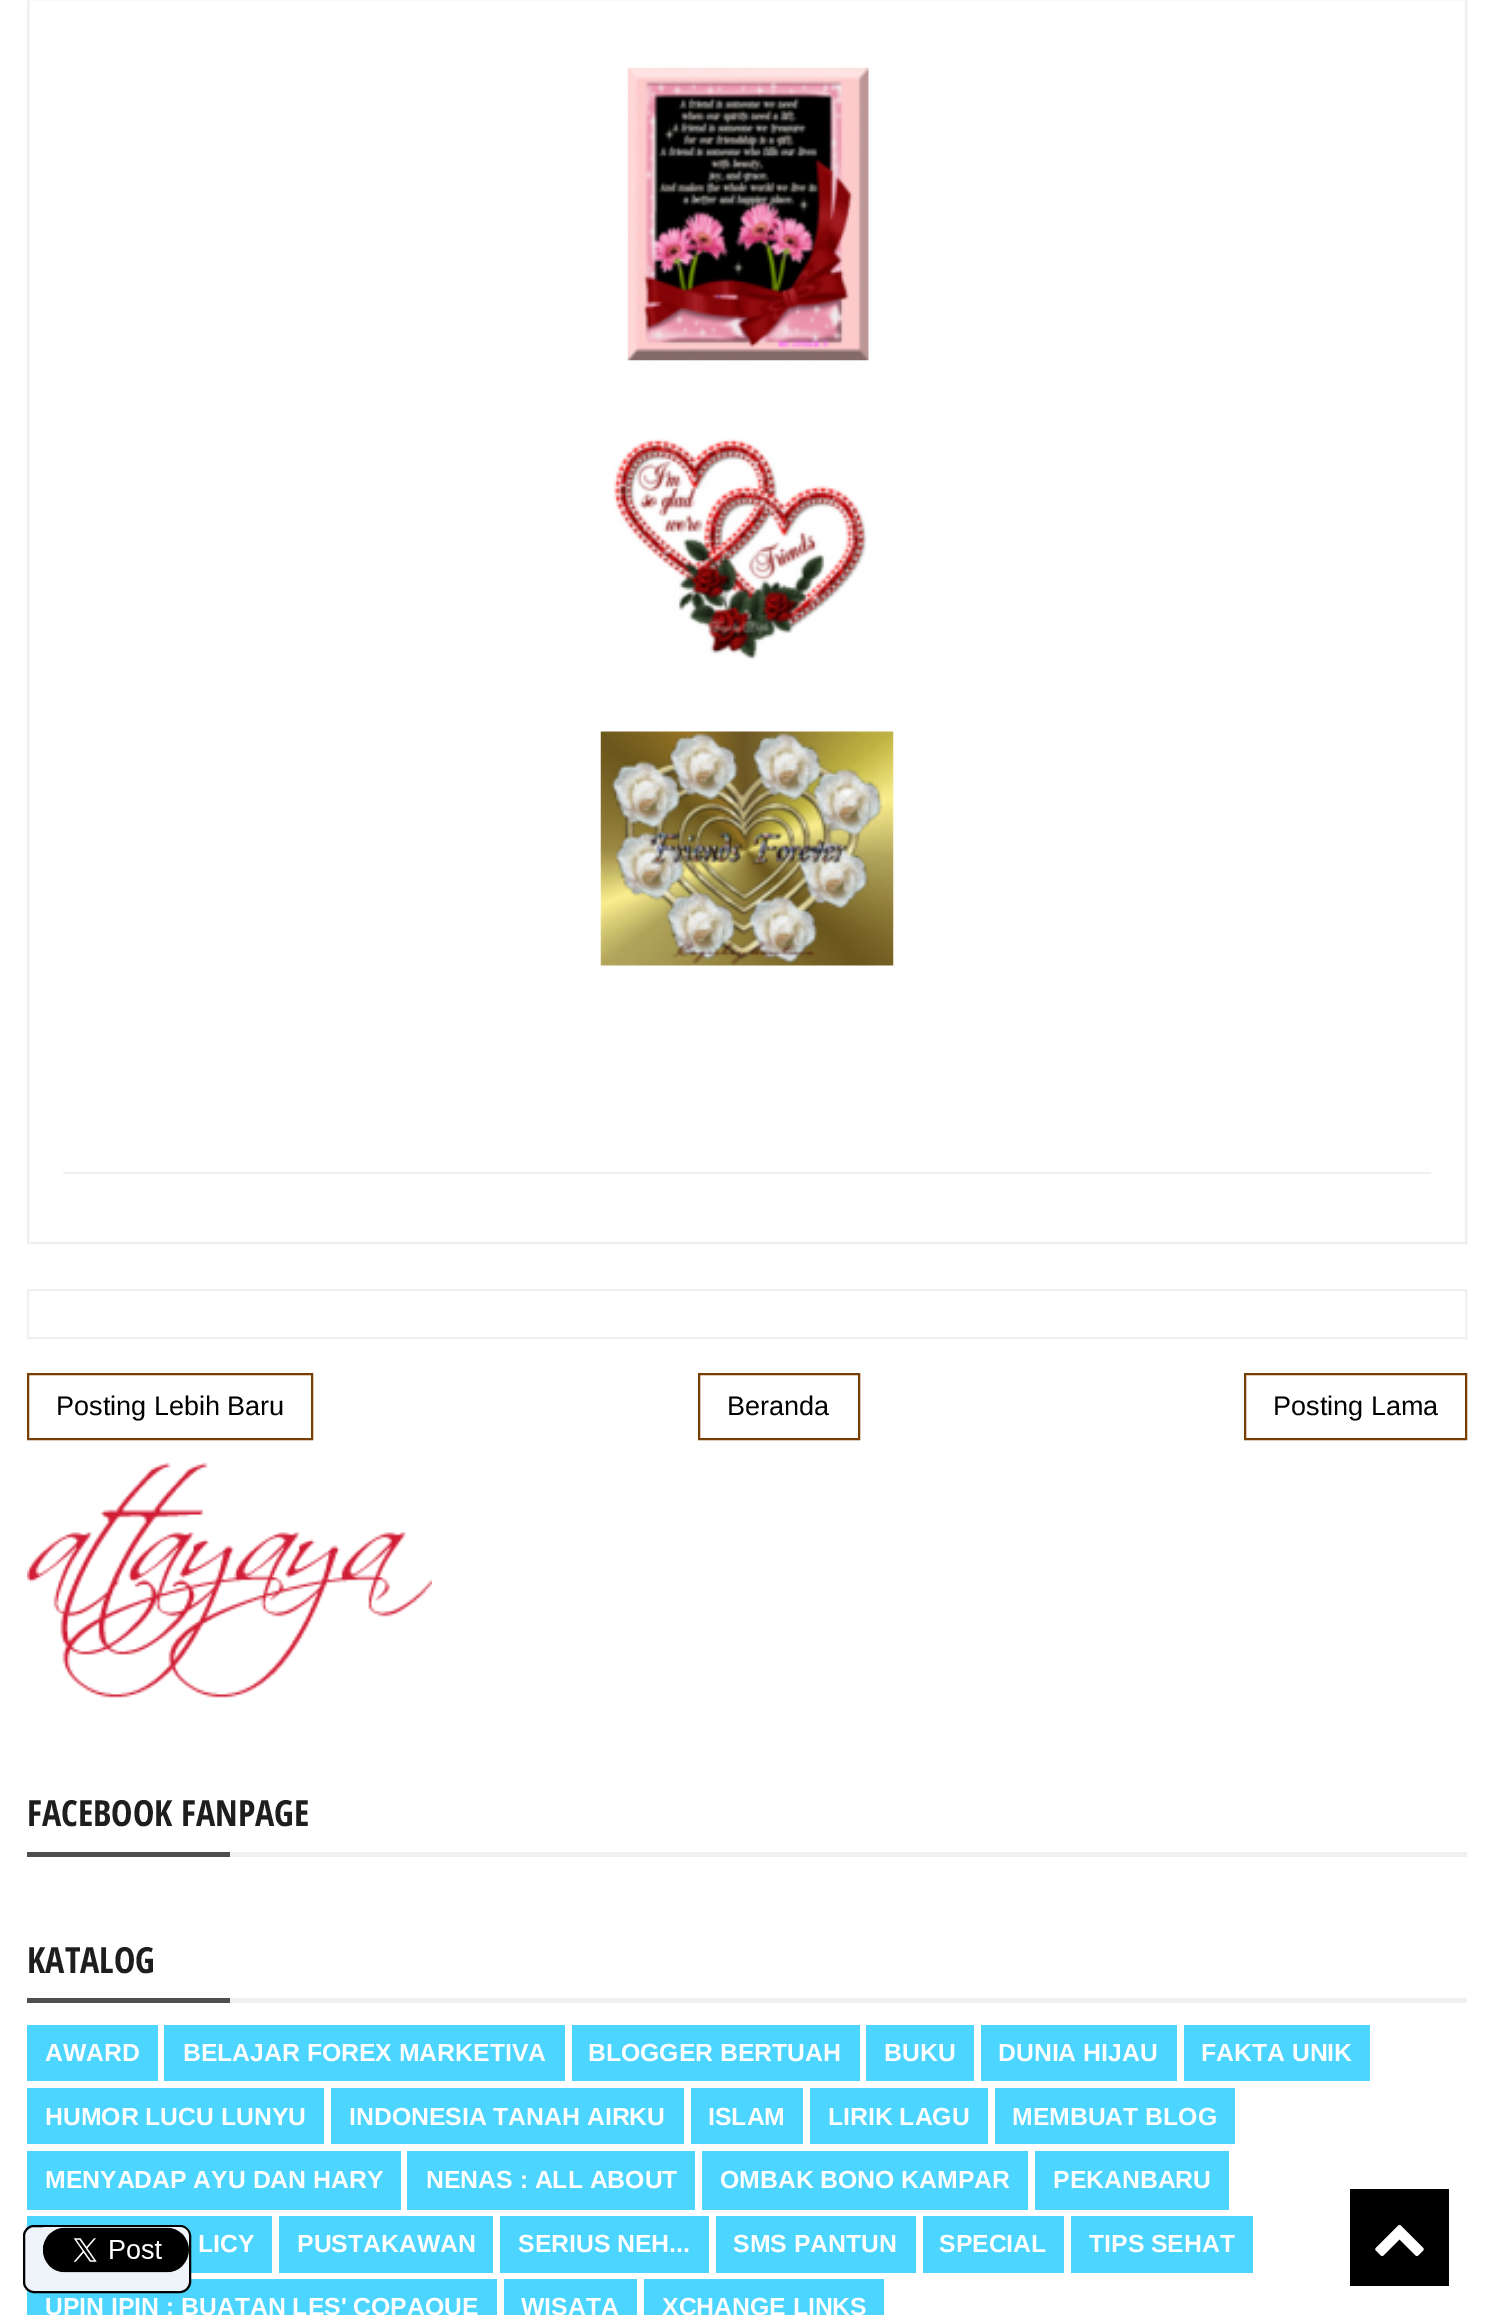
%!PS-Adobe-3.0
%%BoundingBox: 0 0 1493 2315
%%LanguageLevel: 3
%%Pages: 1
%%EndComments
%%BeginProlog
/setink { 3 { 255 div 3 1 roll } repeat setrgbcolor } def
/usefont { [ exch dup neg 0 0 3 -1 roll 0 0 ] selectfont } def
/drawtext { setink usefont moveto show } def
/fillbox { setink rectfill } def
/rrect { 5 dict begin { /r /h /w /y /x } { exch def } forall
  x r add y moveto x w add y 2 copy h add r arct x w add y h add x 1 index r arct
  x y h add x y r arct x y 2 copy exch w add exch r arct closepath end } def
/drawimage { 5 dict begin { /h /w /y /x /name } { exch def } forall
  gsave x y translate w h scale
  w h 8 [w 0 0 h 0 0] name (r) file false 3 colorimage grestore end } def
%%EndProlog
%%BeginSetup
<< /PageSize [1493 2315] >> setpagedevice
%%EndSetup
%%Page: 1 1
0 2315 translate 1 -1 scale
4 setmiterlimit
0 0 1493 2315 255 255 255 fillbox
239 239 239 setink
2 setlinewidth
28 -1 1438 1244 rectstroke
(assets/img1.rgb) 627 67 242 294 drawimage
(assets/img2.rgb) 613 438 254 222 drawimage
(assets/img3.rgb) 600 731 294 235 drawimage
63 1172 1368 2 240 240 240 fillbox
28 1290 1438 48 rectstroke
120 63 4 setink
28 1374 284 65 rectstroke
(Posting Lebih Baru) 56 1415 /LiberationSans-Regular 27 0 0 0 drawtext
120 63 4 setink
699 1374 160 65 rectstroke
(Beranda) 727 1415 /LiberationSans-Regular 27 0 0 0 drawtext
120 63 4 setink
1245 1374 221 65 rectstroke
(Posting Lama) 1273 1415 /LiberationSans-Regular 27 0 0 0 drawtext
(assets/img4.rgb) 27 1462 405 236 drawimage
230 1852 1237 5 240 240 240 fillbox
(FACEBOOK FANPAGE) 27 1826 /OpenSansCondensed-Bold 36 30 30 30 drawtext
27 1852 203 5 79 79 79 fillbox
230 1998 1237 5 240 240 240 fillbox
(KATALOG) 27 1973 /OpenSansCondensed-Bold 36 30 30 30 drawtext
27 1998 203 5 79 79 79 fillbox
27 2025 131 56 76 213 255 fillbox
(AWARD) 45 2061 /LiberationSans-Bold 24.75 255 255 255 drawtext
164 2025 401 56 76 213 255 fillbox
(BELAJAR FOREX MARKETIVA) 183 2061 /LiberationSans-Bold 24.75 255 255 255 drawtext
572 2025 288 56 76 213 255 fillbox
(BLOGGER BERTUAH) 588 2061 /LiberationSans-Bold 24.75 255 255 255 drawtext
866 2025 108 56 76 213 255 fillbox
(BUKU) 884 2061 /LiberationSans-Bold 24.75 255 255 255 drawtext
981 2025 196 56 76 213 255 fillbox
(DUNIA HIJAU) 998 2061 /LiberationSans-Bold 24.75 255 255 255 drawtext
1184 2025 186 56 76 213 255 fillbox
(FAKTA UNIK) 1201 2061 /LiberationSans-Bold 24.75 255 255 255 drawtext
27 2088 297 56 76 213 255 fillbox
(HUMOR LUCU LUNYU) 45 2125 /LiberationSans-Bold 24.75 255 255 255 drawtext
331 2088 353 56 76 213 255 fillbox
(INDONESIA TANAH AIRKU) 349 2125 /LiberationSans-Bold 24.75 255 255 255 drawtext
691 2088 112 56 76 213 255 fillbox
(ISLAM) 708 2125 /LiberationSans-Bold 24.75 255 255 255 drawtext
810 2088 178 56 76 213 255 fillbox
(LIRIK LAGU) 828 2125 /LiberationSans-Bold 24.75 255 255 255 drawtext
995 2088 240 56 76 213 255 fillbox
(MEMBUAT BLOG) 1012 2125 /LiberationSans-Bold 24.75 255 255 255 drawtext
27 2151 374 59 76 213 255 fillbox
(MENYADAP AYU DAN HARY) 45 2188 /LiberationSans-Bold 24.75 255 255 255 drawtext
407 2151 288 59 76 213 255 fillbox
(NENAS : ALL ABOUT) 426 2188 /LiberationSans-Bold 24.75 255 255 255 drawtext
702 2151 326 59 76 213 255 fillbox
(OMBAK BONO KAMPAR) 720 2188 /LiberationSans-Bold 24.75 255 255 255 drawtext
1035 2151 194 59 76 213 255 fillbox
(PEKANBARU) 1053 2188 /LiberationSans-Bold 24.75 255 255 255 drawtext
27 2216 245 57 76 213 255 fillbox
(LICY) 198 2252 /LiberationSans-Bold 24.75 255 255 255 drawtext
279 2216 214 57 76 213 255 fillbox
(PUSTAKAWAN) 297 2252 /LiberationSans-Bold 24.75 255 255 255 drawtext
500 2216 209 57 76 213 255 fillbox
(SERIUS NEH...) 518 2252 /LiberationSans-Bold 24.75 255 255 255 drawtext
716 2216 200 57 76 213 255 fillbox
(SMS PANTUN) 733 2252 /LiberationSans-Bold 24.75 255 255 255 drawtext
923 2216 141 57 76 213 255 fillbox
(SPECIAL) 939 2252 /LiberationSans-Bold 24.75 255 255 255 drawtext
1071 2216 182 57 76 213 255 fillbox
(TIPS SEHAT) 1089 2252 /LiberationSans-Bold 24.75 255 255 255 drawtext
27 2279 470 36 76 213 255 fillbox
(UPIN IPIN : BUATAN LES' COPAQUE) 45 2315 /LiberationSans-Bold 24.75 255 255 255 drawtext
504 2279 133 36 76 213 255 fillbox
(WISATA) 521 2315 /LiberationSans-Bold 24.75 255 255 255 drawtext
644 2279 240 36 76 213 255 fillbox
(XCHANGE LINKS) 662 2315 /LiberationSans-Bold 24.75 255 255 255 drawtext
239 243 250 setink
24 2226 166 66 10 rrect gsave fill grestore
0 0 0 setink
stroke
(assets/img5.rgb) 43 2227 146 46 drawimage
1350 2189 99 97 0 0 0 fillbox
(assets/img6.rgb) 1375 2224 49 33 drawimage
showpage
%%EOF
